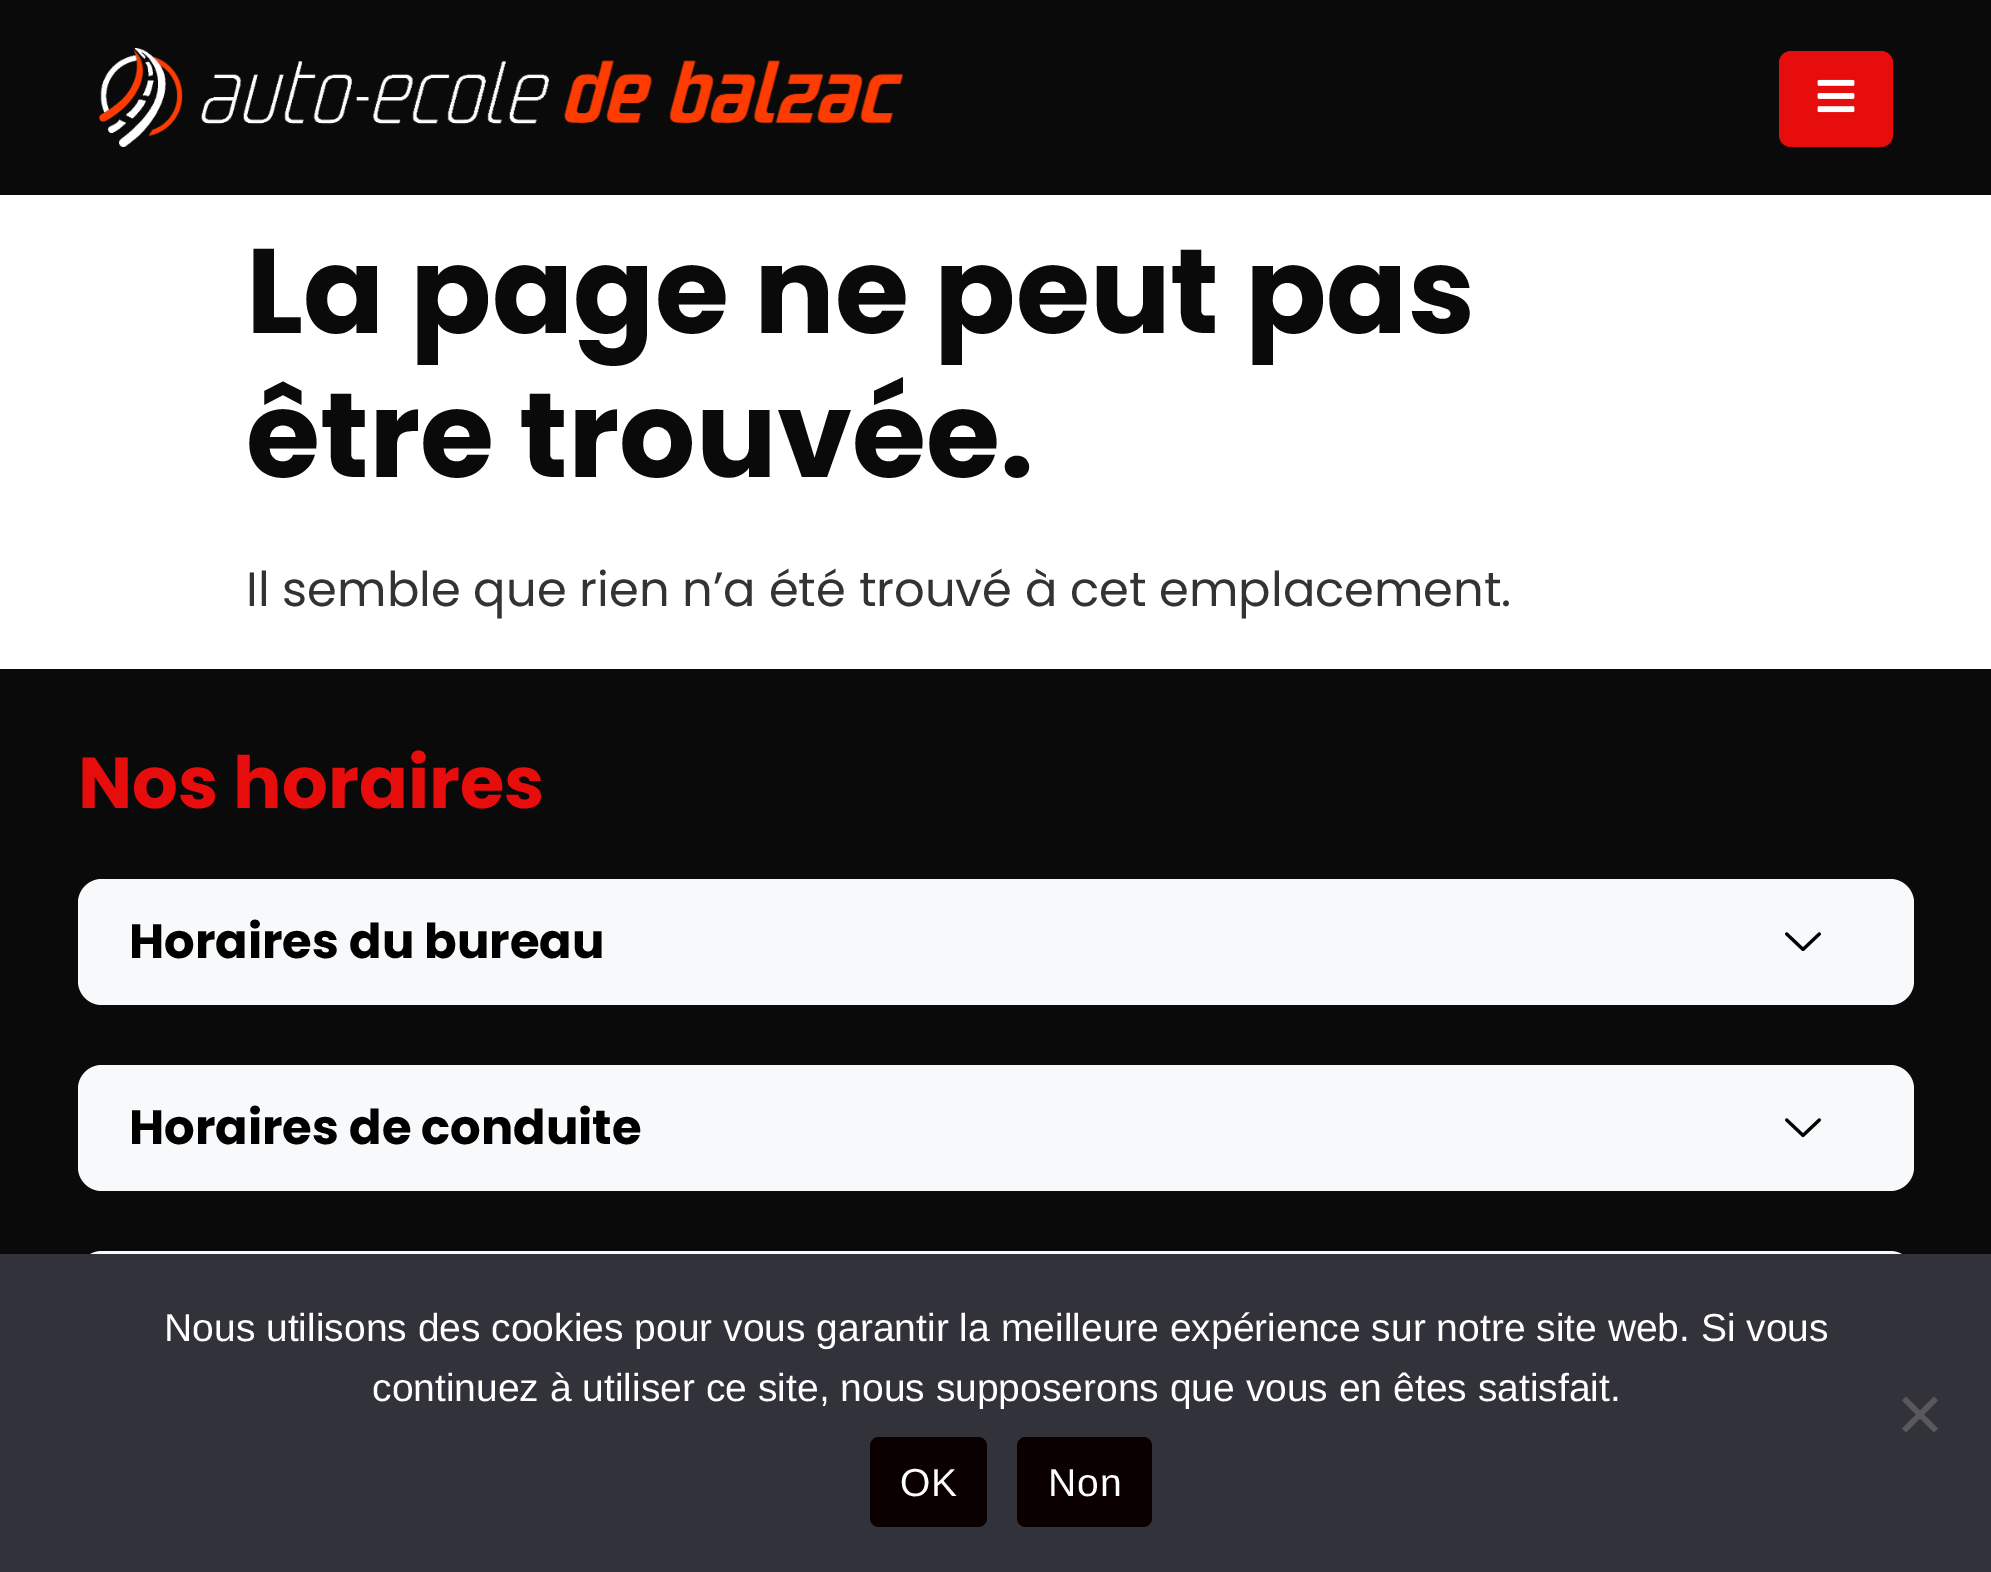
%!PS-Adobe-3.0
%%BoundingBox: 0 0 1991 1572
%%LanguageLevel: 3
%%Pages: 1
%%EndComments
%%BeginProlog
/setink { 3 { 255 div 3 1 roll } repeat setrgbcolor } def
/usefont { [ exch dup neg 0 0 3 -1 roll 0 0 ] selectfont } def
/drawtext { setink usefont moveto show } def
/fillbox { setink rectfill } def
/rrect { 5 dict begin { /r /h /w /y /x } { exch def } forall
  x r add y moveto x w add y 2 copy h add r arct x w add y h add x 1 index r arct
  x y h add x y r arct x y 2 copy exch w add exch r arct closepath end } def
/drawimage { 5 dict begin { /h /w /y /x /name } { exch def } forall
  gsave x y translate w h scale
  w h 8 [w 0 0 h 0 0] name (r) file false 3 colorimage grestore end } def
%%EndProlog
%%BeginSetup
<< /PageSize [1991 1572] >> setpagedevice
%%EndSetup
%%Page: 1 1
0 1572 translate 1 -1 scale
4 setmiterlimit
0 0 1991 1572 255 255 255 fillbox
0 0 1991 195 10 10 10 fillbox
(assets/img1.rgb) 99 48 804 99 drawimage
232 13 13 setink
1779 51 114 96 12 rrect fill
(assets/img2.rgb) 1817 79 38 34 drawimage
(La page ne peut pas) 246 333 /Poppins-Bold 120 10 10 10 drawtext
(être trouvée.) 246 477 /Poppins-Bold 120 10 10 10 drawtext
(Il semble que rien n’a été trouvé à cet emplacement.) 246 606 /Poppins-Regular 48 51 51 51 drawtext
0 669 1991 585 10 10 10 fillbox
(Nos horaires) 78 808 /Poppins-Bold 72 232 13 13 drawtext
247 249 251 setink
78 879 1836 126 24 rrect fill
(Horaires du bureau) 129 958 /Poppins-Bold 48 0 0 0 drawtext
(assets/img3.rgb) 1785 932 36 20 drawimage
247 249 251 setink
78 1065 1836 126 24 rrect fill
(Horaires de conduite) 129 1144 /Poppins-Bold 48 0 0 0 drawtext
(assets/img3.rgb) 1785 1118 36 20 drawimage
247 249 251 setink
78 1251 1836 126 24 rrect fill
0 1254 1991 318 50 50 58 fillbox
(Nous utilisons des cookies pour vous garantir la meilleure expérience sur notre site web. Si vous) 164 1341 /LiberationSans-Regular 39 255 255 255 drawtext
(continuez à utiliser ce site, nous supposerons que vous en êtes satisfait.) 372 1401 /LiberationSans-Regular 39 255 255 255 drawtext
89 89 93 setink
1934 1396.5 moveto 1938 1400.5 lineto 1906 1432.5 lineto 1902 1428.5 lineto closepath fill
1902 1400.5 moveto 1906 1396.5 lineto 1938 1428.5 lineto 1934 1432.5 lineto closepath fill
10 0 0 setink
870 1437 117 90 9 rrect fill
255 255 255 setink
900 1496 moveto 1 0 (OK) ashow
10 0 0 setink
1017 1437 135 90 9 rrect fill
255 255 255 setink
1048 1496 moveto 1 0 (Non) ashow
showpage
%%EOF
